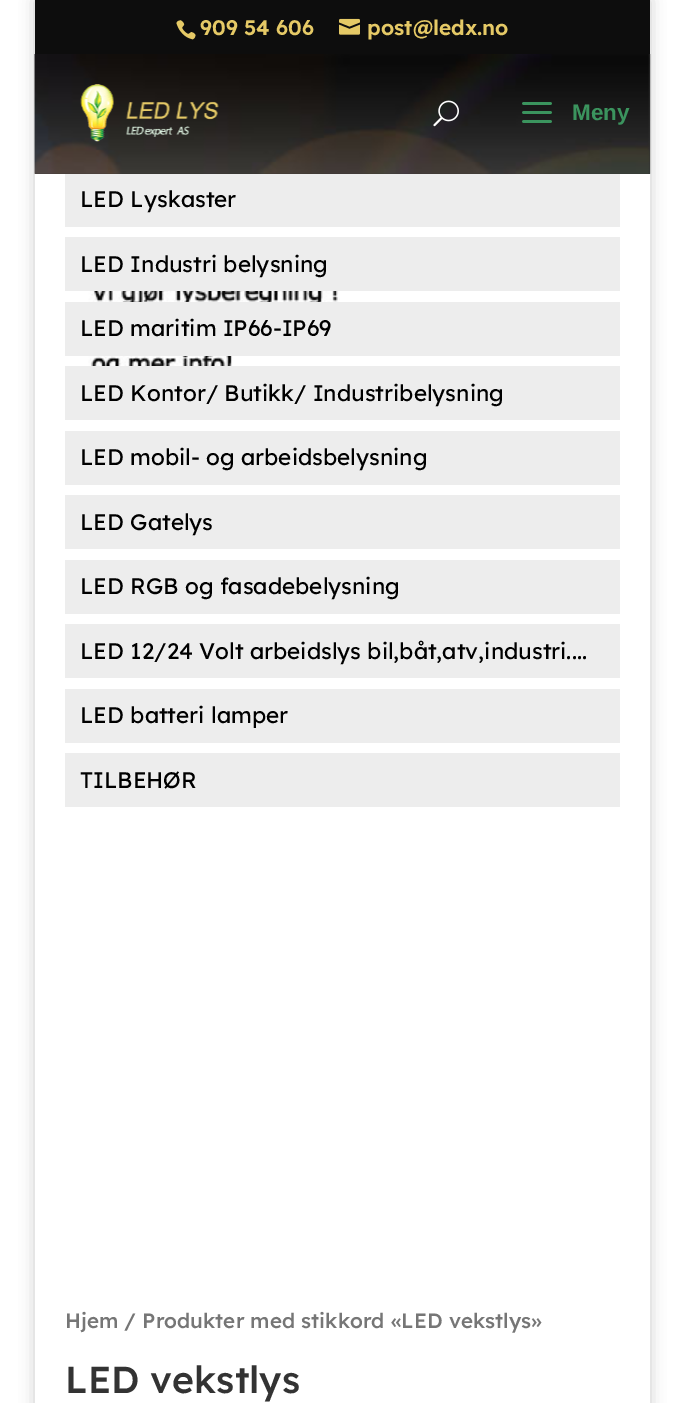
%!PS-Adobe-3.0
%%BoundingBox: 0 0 684 1403
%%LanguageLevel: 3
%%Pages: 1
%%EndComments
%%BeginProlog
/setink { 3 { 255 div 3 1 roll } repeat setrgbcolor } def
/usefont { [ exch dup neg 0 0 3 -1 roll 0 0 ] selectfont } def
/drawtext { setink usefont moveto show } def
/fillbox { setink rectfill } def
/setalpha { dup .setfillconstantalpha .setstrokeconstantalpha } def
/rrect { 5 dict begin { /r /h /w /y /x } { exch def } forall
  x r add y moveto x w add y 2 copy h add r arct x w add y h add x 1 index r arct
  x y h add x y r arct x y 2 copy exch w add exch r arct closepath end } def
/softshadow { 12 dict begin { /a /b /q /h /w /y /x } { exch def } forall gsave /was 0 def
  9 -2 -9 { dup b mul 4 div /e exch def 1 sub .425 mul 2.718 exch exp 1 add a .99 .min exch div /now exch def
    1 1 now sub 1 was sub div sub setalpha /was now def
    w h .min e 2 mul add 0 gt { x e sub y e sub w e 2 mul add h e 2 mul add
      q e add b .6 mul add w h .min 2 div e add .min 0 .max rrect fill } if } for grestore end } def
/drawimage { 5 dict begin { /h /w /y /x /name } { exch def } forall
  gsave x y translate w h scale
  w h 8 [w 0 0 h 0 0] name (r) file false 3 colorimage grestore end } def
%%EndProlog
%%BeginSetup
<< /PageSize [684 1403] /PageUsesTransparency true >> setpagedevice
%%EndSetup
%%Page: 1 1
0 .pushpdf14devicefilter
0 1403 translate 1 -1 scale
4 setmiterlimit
0 0 684 1403 255 255 255 fillbox
0 0 0 setink
35 0 615 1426 0 7.5 0.2 softshadow
35 0 615 54 13 13 13 fillbox
(assets/img1.rgb) 176 20 20 20 drawimage
(909 54 606) 200 35 /LexendDeca-SemiBold 21 229 201 102 drawtext
(assets/img2.rgb) 339 18 21 17 drawimage
(post@ledx.no) 367 35 /LexendDeca-SemiBold 21 229 201 102 drawtext
35 54 615 1349 255 255 255 fillbox
65 173 555 54 237 237 237 fillbox
0.99 setalpha
35 54 615 120 48 48 48 fillbox
1 setalpha
(assets/img3.rgb) 34 54 617 120 drawimage
(assets/img4.rgb) 80 84 139 58 drawimage
(assets/img5.rgb) 433 100 26 27 drawimage
(assets/img6.rgb) 522 102 30 21 drawimage
(Meny) 572 120 /LiberationSans-Bold 22.5 59 148 94 drawtext
(LED Lyskaster) 80 207 /LexendDeca-Regular 22.5 0 0 0 drawtext
65 237 555 54 237 237 237 fillbox
(LED Industri belysning) 80 272 /LexendDeca-Regular 22.5 0 0 0 drawtext
(assets/img7.rgb) 88 291 252 75 drawimage
65 302 555 54 237 237 237 fillbox
(LED maritim IP66-IP69) 80 336 /LexendDeca-Regular 22.5 0 0 0 drawtext
65 366 555 54 237 237 237 fillbox
(LED Kontor/ Butikk/ Industribelysning) 80 401 /LexendDeca-Regular 22.5 0 0 0 drawtext
65 431 555 54 237 237 237 fillbox
(LED mobil- og arbeidsbelysning) 80 465 /LexendDeca-Regular 22.5 0 0 0 drawtext
65 495 555 54 237 237 237 fillbox
(LED Gatelys) 80 530 /LexendDeca-Regular 22.5 0 0 0 drawtext
65 560 555 54 237 237 237 fillbox
(LED RGB og fasadebelysning) 80 594 /LexendDeca-Regular 22.5 0 0 0 drawtext
65 624 555 54 237 237 237 fillbox
(LED 12/24 Volt arbeidslys bil,båt,atv,industri....) 80 659 /LexendDeca-Regular 22.5 0 0 0 drawtext
65 689 555 54 237 237 237 fillbox
(LED batteri lamper) 80 723 /LexendDeca-Regular 22.5 0 0 0 drawtext
65 753 555 54 237 237 237 fillbox
(TILBEHØR) 80 788 /LexendDeca-Regular 22.5 0 0 0 drawtext
(Hjem / Produkter med stikkord «LED vekstlys») 65 1328 /LexendDeca-Medium 20.7 118 118 118 drawtext
(LED vekstlys) 65 1393 /LexendDeca-Medium 37.5 51 51 51 drawtext
.poppdf14devicefilter showpage
%%EOF
